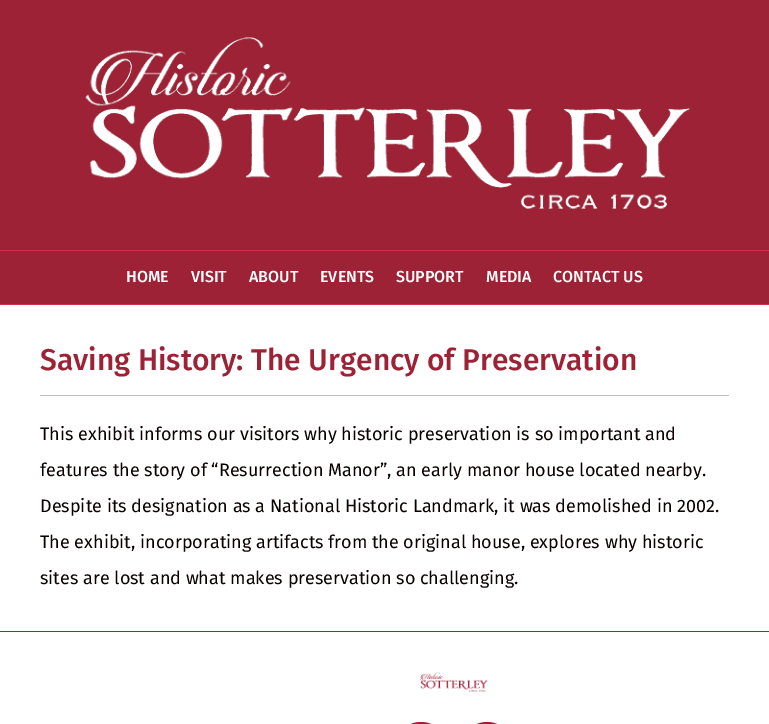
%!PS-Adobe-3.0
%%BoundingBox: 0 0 769 724
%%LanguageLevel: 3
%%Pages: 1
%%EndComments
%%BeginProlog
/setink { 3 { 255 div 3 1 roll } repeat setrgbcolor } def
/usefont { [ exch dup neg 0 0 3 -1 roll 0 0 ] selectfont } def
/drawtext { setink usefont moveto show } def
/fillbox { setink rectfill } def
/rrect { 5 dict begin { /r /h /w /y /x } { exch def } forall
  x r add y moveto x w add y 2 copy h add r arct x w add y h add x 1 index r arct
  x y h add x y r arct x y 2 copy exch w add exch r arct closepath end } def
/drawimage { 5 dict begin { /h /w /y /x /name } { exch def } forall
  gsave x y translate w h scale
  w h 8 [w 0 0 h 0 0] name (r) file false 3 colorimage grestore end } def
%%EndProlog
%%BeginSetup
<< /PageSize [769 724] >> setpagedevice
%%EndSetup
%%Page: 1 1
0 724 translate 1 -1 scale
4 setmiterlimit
0 0 769 724 157 34 53 fillbox
(assets/img1.rgb) 85 37 606 172 drawimage
0 250 769 1 210 47 72 fillbox
0 304 769 1 210 47 72 fillbox
(HOME) 126 282 /FiraSans-Medium 16 255 255 255 drawtext
(VISIT) 191 282 /FiraSans-Medium 16 255 255 255 drawtext
(ABOUT) 249 282 /FiraSans-Medium 16 255 255 255 drawtext
(EVENTS) 320 282 /FiraSans-Medium 16 255 255 255 drawtext
(SUPPORT) 396 282 /FiraSans-Medium 16 255 255 255 drawtext
(MEDIA) 486 282 /FiraSans-Medium 16 255 255 255 drawtext
(CONTACT US) 553 282 /FiraSans-Medium 16 255 255 255 drawtext
0 305 769 326 255 255 255 fillbox
(Saving History: The Urgency of Preservation) 40 370 /FiraSans-Medium 30 157 34 54 drawtext
40 395 689 1 191 191 191 fillbox
(This exhibit informs our visitors why historic preservation is so important and) 40 440 /FiraSans-Regular 18 10 0 0 drawtext
(features the story of “Resurrection Manor”, an early manor house located nearby.) 40 476 /FiraSans-Regular 18 10 0 0 drawtext
(Despite its designation as a National Historic Landmark, it was demolished in 2002.) 40 512 /FiraSans-Regular 18 10 0 0 drawtext
(The exhibit, incorporating artifacts from the original house, explores why historic) 40 548 /FiraSans-Regular 18 10 0 0 drawtext
(sites are lost and what makes preservation so challenging.) 40 584 /FiraSans-Regular 18 10 0 0 drawtext
0 632 769 92 255 255 255 fillbox
(assets/img2.rgb) 420 672 68 20 drawimage
157 34 54 setink
395 722 52 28 26 rrect fill
461 722 52 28 26 rrect fill
showpage
%%EOF
